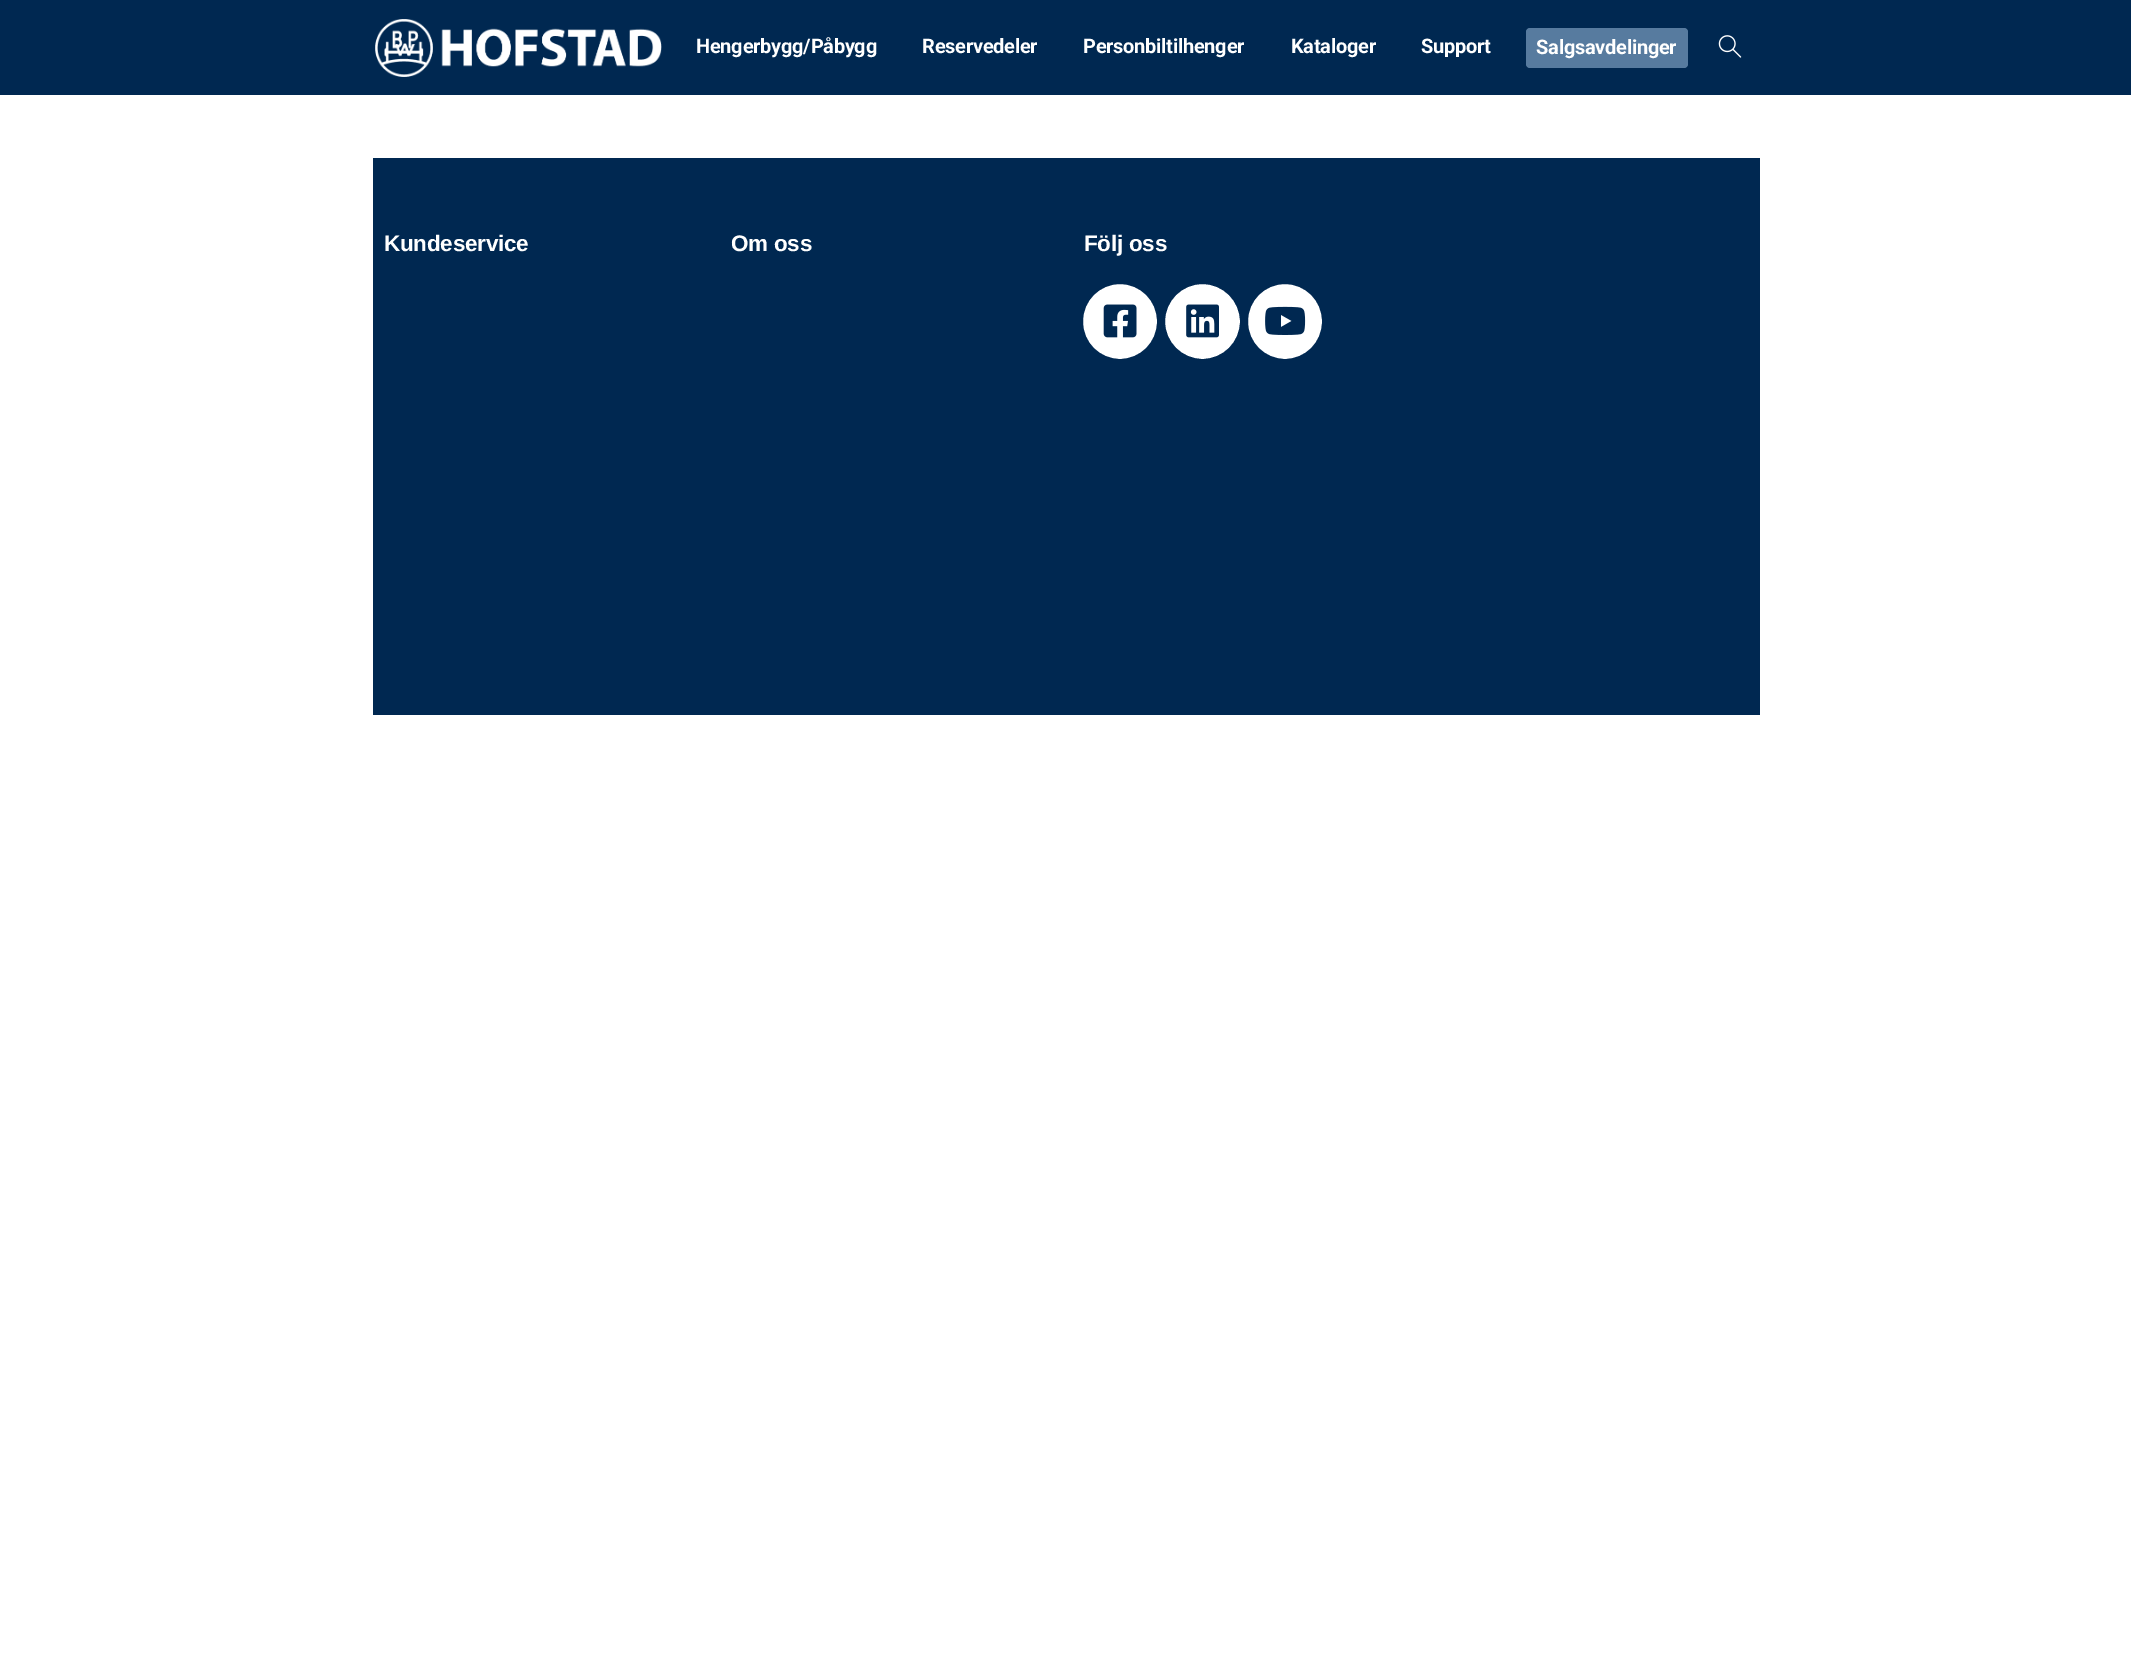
%!PS-Adobe-3.0
%%BoundingBox: 0 0 2131 1677
%%LanguageLevel: 3
%%Pages: 1
%%EndComments
%%BeginProlog
/setink { 3 { 255 div 3 1 roll } repeat setrgbcolor } def
/usefont { [ exch dup neg 0 0 3 -1 roll 0 0 ] selectfont } def
/fillbox { setink rectfill } def
/disc { newpath 0 360 arc closepath } def
/rrect { 5 dict begin { /r /h /w /y /x } { exch def } forall
  x r add y moveto x w add y 2 copy h add r arct x w add y h add x 1 index r arct
  x y h add x y r arct x y 2 copy exch w add exch r arct closepath end } def
/drawimage { 5 dict begin { /h /w /y /x /name } { exch def } forall
  gsave x y translate w h scale
  w h 8 [w 0 0 h 0 0] name (r) file false 3 colorimage grestore end } def
%%EndProlog
%%BeginSetup
<< /PageSize [2131 1677] >> setpagedevice
%%EndSetup
%%Page: 1 1
0 1677 translate 1 -1 scale
4 setmiterlimit
0 0 2131 1677 255 255 255 fillbox
0 0 2131 95 0 40 81 fillbox
(assets/img1.rgb) 375 19 287 58 drawimage
/Roboto-Bold 20 usefont
255 255 255 setink
696 53 moveto -0.25 0 (Hengerbygg/Påbygg) ashow
922 53 moveto -0.25 0 (Reservedeler) ashow
1083 53 moveto -0.25 0 (Personbiltilhenger) ashow
1291 53 moveto -0.25 0 (Kataloger) ashow
1421 53 moveto -0.25 0 (Support) ashow
87 123 159 setink
1526 28 162 40 4 rrect fill
255 255 255 setink
1536 54 moveto -0.25 0 (Salgsavdelinger) ashow
(assets/img2.rgb) 1718 35 24 23 drawimage
373 158 1387 557 0 40 81 fillbox
/LiberationSans-Bold 22.5 usefont
255 255 255 setink
384 251 moveto -0.25 0 (Kundeservice) ashow
731 251 moveto -0.25 0 (Om oss) ashow
1084 251 moveto -0.25 0 (Följ oss) ashow
1081 282 78 79 39 rrect gsave fill grestore
0 40 81 setink
4 setlinewidth
stroke
(assets/img3.rgb) 1103 304 34 34 drawimage
255 255 255 setink
1202.5 321.5 39.5 disc gsave fill grestore
0 40 81 setink
stroke
(assets/img4.rgb) 1186 304 33 34 drawimage
255 255 255 setink
1246 282 78 79 39 rrect gsave fill grestore
0 40 81 setink
stroke
(assets/img5.rgb) 1265 306 41 29 drawimage
showpage
%%EOF
